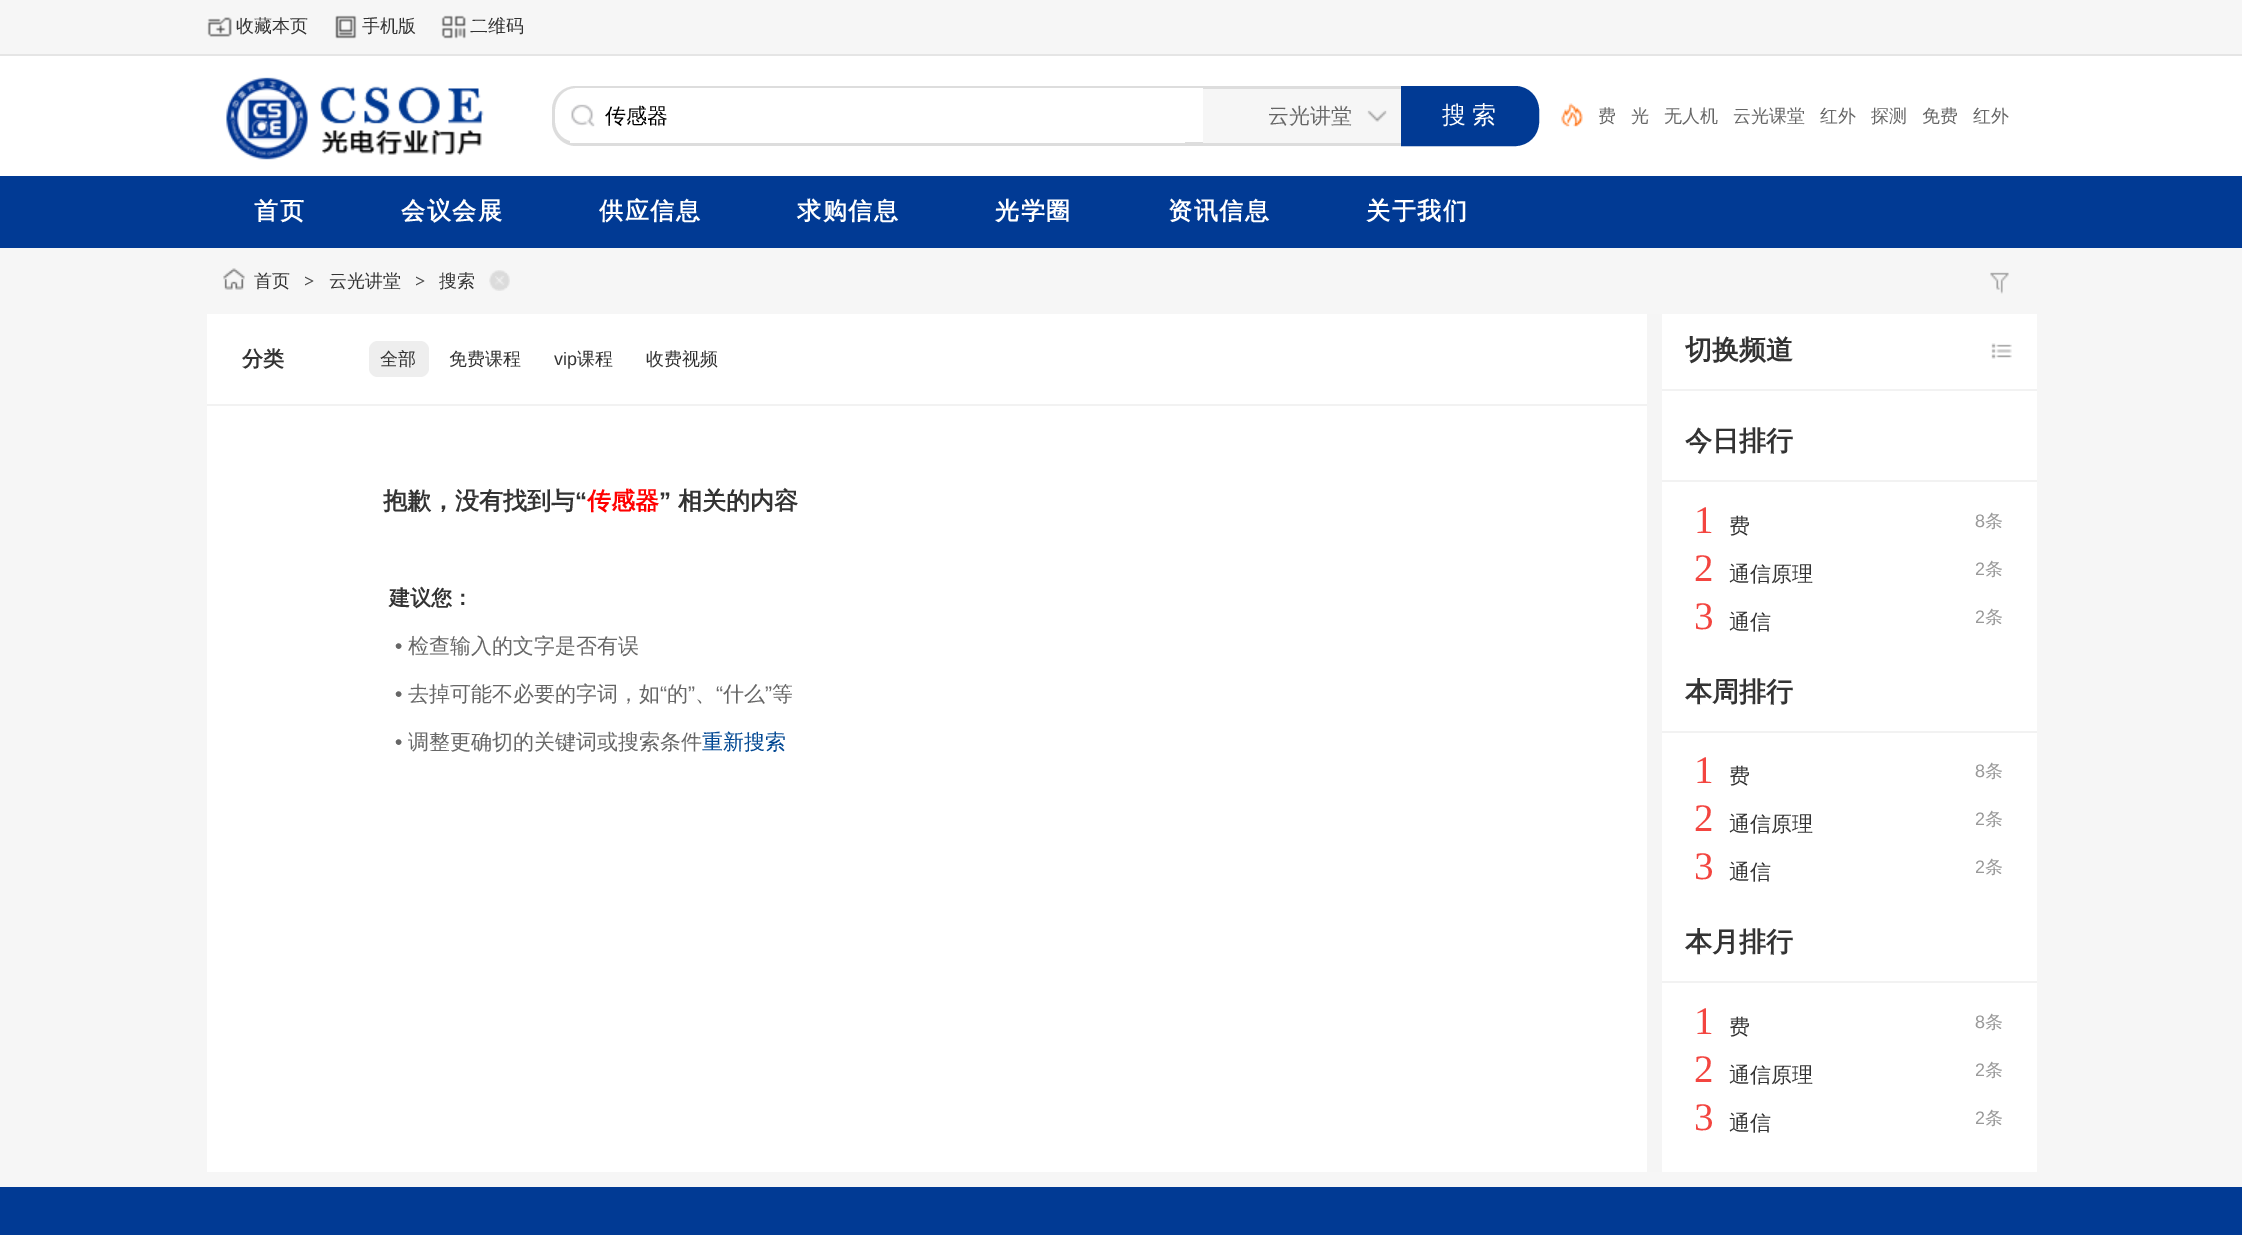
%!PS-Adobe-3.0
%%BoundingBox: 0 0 2242 1235
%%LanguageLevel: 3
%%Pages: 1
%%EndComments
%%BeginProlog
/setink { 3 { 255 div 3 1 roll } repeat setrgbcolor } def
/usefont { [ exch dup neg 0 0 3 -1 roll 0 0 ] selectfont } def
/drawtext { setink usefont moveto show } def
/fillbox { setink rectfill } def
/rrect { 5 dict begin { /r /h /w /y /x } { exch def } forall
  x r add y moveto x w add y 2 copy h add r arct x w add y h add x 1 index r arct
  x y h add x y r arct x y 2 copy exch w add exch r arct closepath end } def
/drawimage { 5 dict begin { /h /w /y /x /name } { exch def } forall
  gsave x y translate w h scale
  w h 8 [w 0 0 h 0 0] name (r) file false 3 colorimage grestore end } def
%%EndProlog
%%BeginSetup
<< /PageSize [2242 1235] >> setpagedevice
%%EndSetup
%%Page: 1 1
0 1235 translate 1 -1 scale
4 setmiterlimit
0 0 2242 1235 246 246 246 fillbox
0 54 2242 2 229 229 229 fillbox
(assets/img1.rgb) 207 17 25 20 drawimage
(收藏本页) 236 32 /WenQuanYiZenHei-Medium 18 51 51 51 drawtext
(assets/img2.rgb) 335 15 22 24 drawimage
(手机版) 362 32 /WenQuanYiZenHei-Medium 18 51 51 51 drawtext
(assets/img3.rgb) 441 15 25 24 drawimage
(二维码) 470 32 /WenQuanYiZenHei-Medium 18 51 51 51 drawtext
0 56 2242 120 255 255 255 fillbox
(assets/img4.rgb) 226 77 258 83 drawimage
221 221 221 setink
576 86 moveto 1203 86 lineto 1203 146 lineto 576 146 lineto 563 146 552 135 552 122 curveto 552 110 lineto 552 96 563 86 576 86 curveto closepath 576 88 moveto 1203 88 lineto 1203 142 lineto 576 142 lineto 564 142 555 133 555 122 curveto 555 110 lineto 555 98 564 88 576 88 curveto closepath eofill
570 141 615 2 255 255 255 fillbox
(assets/img5.rgb) 571 104 24 23 drawimage
(传感器) 605 123 /WenQuanYiZenHei-Medium 21 0 0 0 drawtext
1203 89 198 54 246 246 246 fillbox
1203 86 198 3 221 221 221 fillbox
1203 143 198 3 221 221 221 fillbox
(assets/img6.rgb) 1367 110 20 12 drawimage
(云光讲堂) 1268 123 /WenQuanYiZenHei-Medium 21 102 102 102 drawtext
1 58 148 setink
1402.5 87.5 moveto 1515 87.5 lineto 1527.5 87.5 1537.5 97.5 1537.5 110 curveto 1537.5 122 lineto 1537.5 134.5 1527.5 144.5 1515 144.5 curveto 1402.5 144.5 lineto closepath gsave fill grestore
3 setlinewidth
stroke
/WenQuanYiZenHei-Medium 24 usefont
255 255 255 setink
1442 123 moveto -1 0 32 (搜 索) widthshow
(assets/img7.rgb) 1561 103 22 24 drawimage
(费) 1598 122 /WenQuanYiZenHei-Medium 18 102 102 102 drawtext
(光) 1631 122 /WenQuanYiZenHei-Medium 18 102 102 102 drawtext
(无人机) 1664 122 /WenQuanYiZenHei-Medium 18 102 102 102 drawtext
(云光课堂) 1733 122 /WenQuanYiZenHei-Medium 18 102 102 102 drawtext
(红外) 1820 122 /WenQuanYiZenHei-Medium 18 102 102 102 drawtext
(探测) 1871 122 /WenQuanYiZenHei-Medium 18 102 102 102 drawtext
(免费) 1922 122 /WenQuanYiZenHei-Medium 18 102 102 102 drawtext
(红外) 1973 122 /WenQuanYiZenHei-Medium 18 102 102 102 drawtext
0 176 2242 72 1 58 148 fillbox
/WenQuanYiZenHei-Bold 24 usefont
255 255 255 setink
254 219 moveto 1.5 0 (首页) ashow
401 219 moveto 1.5 0 (会议会展) ashow
599 219 moveto 1.5 0 (供应信息) ashow
797 219 moveto 1.5 0 (求购信息) ashow
995 219 moveto 1.5 0 (光学圈) ashow
1168 219 moveto 1.5 0 (资讯信息) ashow
1366 219 moveto 1.5 0 (关于我们) ashow
(assets/img8.rgb) 223 268 22 22 drawimage
(首页) 254 287 /WenQuanYiZenHei-Medium 18 51 51 51 drawtext
(>) 304 287 /LiberationSerif-Bold 18 68 68 68 drawtext
(云光讲堂) 329 287 /WenQuanYiZenHei-Medium 18 51 51 51 drawtext
(>) 415 287 /LiberationSerif-Bold 18 68 68 68 drawtext
(搜索) 439 287 /WenQuanYiZenHei-Medium 18 51 51 51 drawtext
(assets/img9.rgb) 489 270 21 21 drawimage
(assets/img10.rgb) 1990 272 19 22 drawimage
207 314 1830 858 255 255 255 fillbox
1647 314 15 858 245 245 245 fillbox
207 404 1440 2 242 242 242 fillbox
(分类) 242 366 /WenQuanYiZenHei-Bold 21 51 51 51 drawtext
238 238 238 setink
369 341 60 36 9 rrect fill
(全部) 380 365 /WenQuanYiZenHei-Medium 18 51 51 51 drawtext
(免费课程) 449 365 /WenQuanYiZenHei-Medium 18 51 51 51 drawtext
(vip) 554 365 /LiberationSans-Regular 18 51 51 51 drawtext
(课程) 577 365 /WenQuanYiZenHei-Medium 18 51 51 51 drawtext
(收费视频) 646 365 /WenQuanYiZenHei-Medium 18 51 51 51 drawtext
(抱歉，没有找到与) 383 509 /WenQuanYiZenHei-Bold 24 51 51 51 drawtext
(“) 575 509 /LiberationSans-Bold 24 51 51 51 drawtext
(传感器) 587 509 /WenQuanYiZenHei-Bold 24 255 0 0 drawtext
(”) 659 509 /LiberationSans-Bold 24 51 51 51 drawtext
(相关的内容) 678 509 /WenQuanYiZenHei-Bold 24 51 51 51 drawtext
(建议您：) 389 605 /WenQuanYiZenHei-Bold 21 51 51 51 drawtext
(•) 395 653 /LiberationSans-Regular 21 102 102 102 drawtext
(检查输入的文字是否有误) 408 653 /WenQuanYiZenHei-Medium 21 102 102 102 drawtext
(去掉可能不必要的字词，如) 408 701 /WenQuanYiZenHei-Medium 21 102 102 102 drawtext
(“) 660 701 /LiberationSans-Regular 21 102 102 102 drawtext
(的) 667 701 /WenQuanYiZenHei-Medium 21 102 102 102 drawtext
(”) 688 701 /LiberationSans-Regular 21 102 102 102 drawtext
(“) 716 701 /LiberationSans-Regular 21 102 102 102 drawtext
(什么) 723 701 /WenQuanYiZenHei-Medium 21 102 102 102 drawtext
(”) 765 701 /LiberationSans-Regular 21 102 102 102 drawtext
(等) 772 701 /WenQuanYiZenHei-Medium 21 102 102 102 drawtext
(•) 395 701 /LiberationSans-Regular 21 102 102 102 drawtext
(、) 695 701 /WenQuanYiZenHei-Medium 21 102 102 102 drawtext
(•) 395 749 /LiberationSans-Regular 21 102 102 102 drawtext
(调整更确切的关键词或搜索条件) 408 749 /WenQuanYiZenHei-Medium 21 102 102 102 drawtext
(重新搜索) 702 749 /WenQuanYiZenHei-Medium 21 2 72 147 drawtext
1662 389 375 2 242 242 242 fillbox
(切换频道) 1685 359 /WenQuanYiZenHei-Bold 27 51 51 51 drawtext
(assets/img11.rgb) 1991 343 21 16 drawimage
1662 480 375 2 242 242 242 fillbox
(今日排行) 1685 450 /WenQuanYiZenHei-Bold 27 51 51 51 drawtext
(1) 1694 533 /LiberationSerif-Regular 39 243 69 64 drawtext
(费) 1729 533 /WenQuanYiZenHei-Medium 21 51 51 51 drawtext
(8) 1975 527 /LiberationSans-Regular 18 153 153 153 drawtext
(条) 1985 527 /WenQuanYiZenHei-Medium 18 153 153 153 drawtext
(2) 1694 581 /LiberationSerif-Regular 39 243 69 64 drawtext
(通信原理) 1729 581 /WenQuanYiZenHei-Medium 21 51 51 51 drawtext
(2) 1975 575 /LiberationSans-Regular 18 153 153 153 drawtext
(条) 1985 575 /WenQuanYiZenHei-Medium 18 153 153 153 drawtext
(3) 1694 629 /LiberationSerif-Regular 39 243 69 64 drawtext
(通信) 1729 629 /WenQuanYiZenHei-Medium 21 51 51 51 drawtext
(2) 1975 623 /LiberationSans-Regular 18 153 153 153 drawtext
(条) 1985 623 /WenQuanYiZenHei-Medium 18 153 153 153 drawtext
1662 731 375 2 242 242 242 fillbox
(本周排行) 1685 701 /WenQuanYiZenHei-Bold 27 51 51 51 drawtext
(1) 1694 783 /LiberationSerif-Regular 39 243 69 64 drawtext
(费) 1729 783 /WenQuanYiZenHei-Medium 21 51 51 51 drawtext
(8) 1975 777 /LiberationSans-Regular 18 153 153 153 drawtext
(条) 1985 777 /WenQuanYiZenHei-Medium 18 153 153 153 drawtext
(2) 1694 831 /LiberationSerif-Regular 39 243 69 64 drawtext
(通信原理) 1729 831 /WenQuanYiZenHei-Medium 21 51 51 51 drawtext
(2) 1975 825 /LiberationSans-Regular 18 153 153 153 drawtext
(条) 1985 825 /WenQuanYiZenHei-Medium 18 153 153 153 drawtext
(3) 1694 879 /LiberationSerif-Regular 39 243 69 64 drawtext
(通信) 1729 879 /WenQuanYiZenHei-Medium 21 51 51 51 drawtext
(2) 1975 873 /LiberationSans-Regular 18 153 153 153 drawtext
(条) 1985 873 /WenQuanYiZenHei-Medium 18 153 153 153 drawtext
1662 981 375 2 242 242 242 fillbox
(本月排行) 1685 951 /WenQuanYiZenHei-Bold 27 51 51 51 drawtext
(1) 1694 1034 /LiberationSerif-Regular 39 243 69 64 drawtext
(费) 1729 1034 /WenQuanYiZenHei-Medium 21 51 51 51 drawtext
(8) 1975 1028 /LiberationSans-Regular 18 153 153 153 drawtext
(条) 1985 1028 /WenQuanYiZenHei-Medium 18 153 153 153 drawtext
(2) 1694 1082 /LiberationSerif-Regular 39 243 69 64 drawtext
(通信原理) 1729 1082 /WenQuanYiZenHei-Medium 21 51 51 51 drawtext
(2) 1975 1076 /LiberationSans-Regular 18 153 153 153 drawtext
(条) 1985 1076 /WenQuanYiZenHei-Medium 18 153 153 153 drawtext
(3) 1694 1130 /LiberationSerif-Regular 39 243 69 64 drawtext
(通信) 1729 1130 /WenQuanYiZenHei-Medium 21 51 51 51 drawtext
(2) 1975 1124 /LiberationSans-Regular 18 153 153 153 drawtext
(条) 1985 1124 /WenQuanYiZenHei-Medium 18 153 153 153 drawtext
0 1187 2242 48 1 58 148 fillbox
showpage
%%EOF
